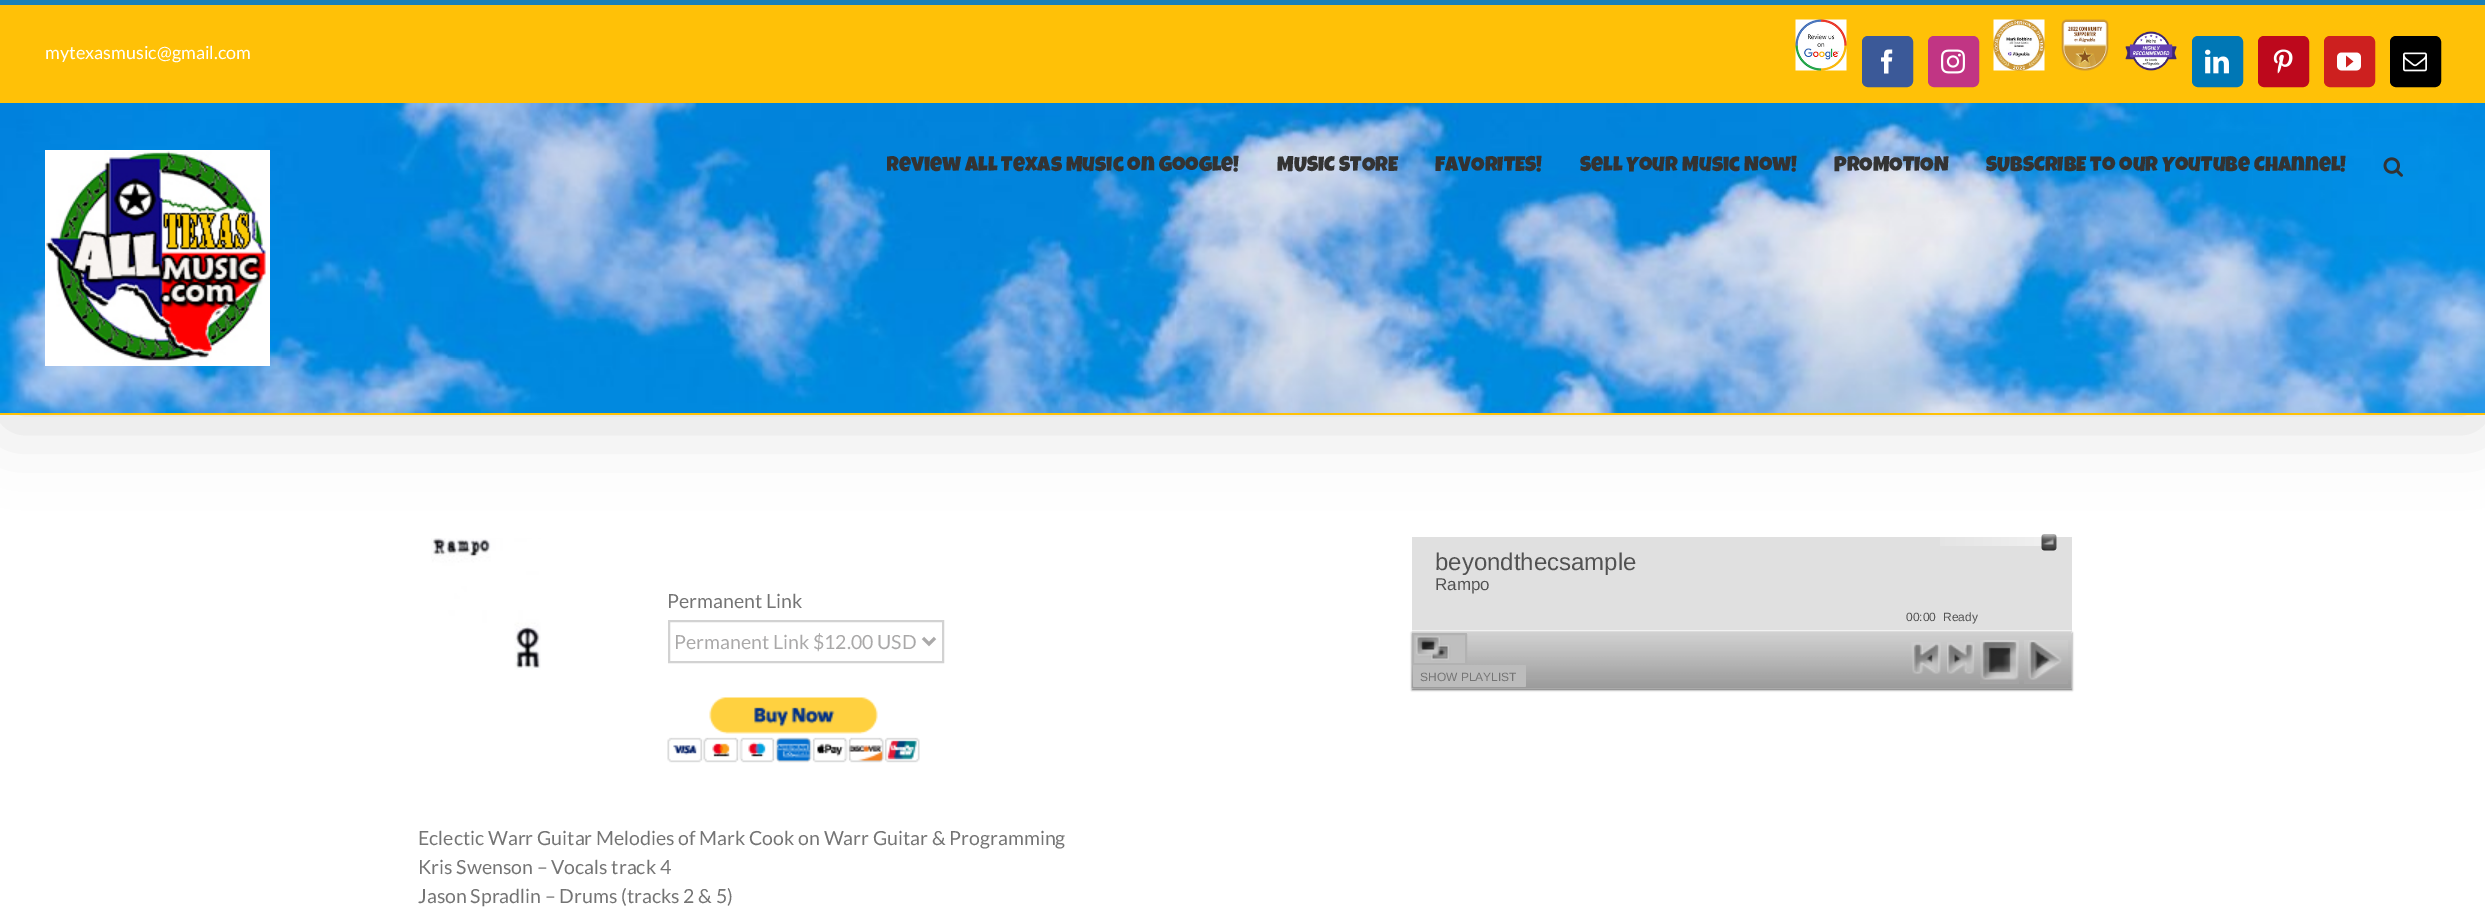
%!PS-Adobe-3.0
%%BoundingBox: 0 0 2485 919
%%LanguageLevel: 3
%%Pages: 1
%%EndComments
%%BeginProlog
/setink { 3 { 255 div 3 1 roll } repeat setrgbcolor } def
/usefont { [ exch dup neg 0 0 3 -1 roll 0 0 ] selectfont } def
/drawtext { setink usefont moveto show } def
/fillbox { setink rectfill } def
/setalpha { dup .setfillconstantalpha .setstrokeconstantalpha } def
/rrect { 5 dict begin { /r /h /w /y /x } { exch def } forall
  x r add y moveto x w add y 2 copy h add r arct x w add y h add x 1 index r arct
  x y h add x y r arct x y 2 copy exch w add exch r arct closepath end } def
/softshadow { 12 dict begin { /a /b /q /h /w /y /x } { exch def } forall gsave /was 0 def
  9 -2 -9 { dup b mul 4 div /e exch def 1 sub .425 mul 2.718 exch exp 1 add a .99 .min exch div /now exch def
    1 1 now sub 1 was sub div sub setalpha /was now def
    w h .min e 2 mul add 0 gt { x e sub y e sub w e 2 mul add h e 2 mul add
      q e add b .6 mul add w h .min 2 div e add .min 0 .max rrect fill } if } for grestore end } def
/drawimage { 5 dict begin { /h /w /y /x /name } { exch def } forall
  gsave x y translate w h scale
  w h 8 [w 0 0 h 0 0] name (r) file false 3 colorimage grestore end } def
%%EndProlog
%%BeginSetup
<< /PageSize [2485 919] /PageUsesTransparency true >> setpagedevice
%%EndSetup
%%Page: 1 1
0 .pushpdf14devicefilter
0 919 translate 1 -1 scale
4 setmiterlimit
0 0 2485 919 255 255 255 fillbox
(assets/img14.rgb) 431 538 110 132 drawimage
1412 537 660 95 224 224 224 fillbox
(assets/img16.rgb) 1940 537 102 9 drawimage
(assets/img17.rgb) 2041 534 16 17 drawimage
0 0 0 setink
3 18 2480 408 0 37.5 0.14 softshadow
0 5 2485 98 255 193 7 fillbox
0 0 2485 5 26 128 182 fillbox
(mytexasmusic@gmail.com) 45 59 /Lato-Regular 18 255 255 255 drawtext
(assets/img1.rgb) 1795 19 52 52 drawimage
59 89 152 setink
1863 37 49 49 5 rrect gsave fill grestore
2 setlinewidth
stroke
(assets/img2.rgb) 1881 49 12 25 drawimage
193 53 132 setink
1929 37 49 49 5 rrect gsave fill grestore
stroke
(assets/img3.rgb) 1941 49 24 25 drawimage
(assets/img4.rgb) 1993 19 52 52 drawimage
(assets/img5.rgb) 2061 19 48 52 drawimage
(assets/img6.rgb) 2125 31 52 40 drawimage
0 119 181 setink
2193 37 49 49 5 rrect gsave fill grestore
stroke
(assets/img7.rgb) 2205 49 24 25 drawimage
189 8 28 setink
2259 37 49 49 5 rrect gsave fill grestore
stroke
(assets/img8.rgb) 2273 49 20 25 drawimage
205 32 31 setink
2325 37 49 49 5 rrect gsave fill grestore
stroke
(assets/img9.rgb) 2337 52 24 19 drawimage
0 0 0 setink
2391 37 49 49 5 rrect gsave fill grestore
stroke
(assets/img10.rgb) 2403 52 24 20 drawimage
(assets/img11.rgb) 0 103 2485 310 drawimage
0 413 2485 2 255 193 7 fillbox
(assets/img12.rgb) 45 150 225 216 drawimage
gsave
887 104 1554 126 rectclip
(Review All Texas Music on Google!) 886 171 /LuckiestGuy-Regular 21 51 51 51 drawtext
grestore
(MUSIC STORE) 1277 171 /LuckiestGuy-Regular 21 51 51 51 drawtext
(FAVORITES!) 1435 171 /LuckiestGuy-Regular 21 51 51 51 drawtext
(Sell Your Music Now!) 1580 171 /LuckiestGuy-Regular 21 51 51 51 drawtext
(PROMOTION) 1834 171 /LuckiestGuy-Regular 21 51 51 51 drawtext
(SUBSCRIBE to our YouTube Channel!) 1986 171 /LuckiestGuy-Regular 21 51 51 51 drawtext
(assets/img13.rgb) 2383 157 20 20 drawimage
(Permanent Link) 667 608 /Lato-Regular 19.5 116 116 116 drawtext
210 210 210 setink
669 621 274 41 rectstroke
170 169 169 setink
3 setlinewidth
923 638 moveto 929 644 lineto 935 638 lineto stroke
(Permanent Link $12.00 USD) 674 649 /Lato-Regular 19.5 170 169 169 drawtext
(assets/img15.rgb) 667 697 253 66 drawimage
(beyondthecsample) 1435 570 /LiberationSans-Regular 24 82 82 82 drawtext
(Rampo) 1435 590 /LiberationSans-Regular 17 82 82 82 drawtext
(00:00) 1906 621 /LiberationSans-Regular 12 82 82 82 drawtext
(Ready) 1943 621 /LiberationSans-Regular 12 82 82 82 drawtext
(assets/img18.rgb) 1412 630 660 2 drawimage
50 50 50 setink
1412 633 660 57 0 1 0.75 softshadow
(assets/img24.rgb) 1411 631 661 58 drawimage
(assets/img19.rgb) 1411 633 56 32 drawimage
178 178 178 setink
2 setlinewidth
1413 634 53 30 0.5 rrect stroke
188 188 188 setink
1413 665 113 22 1.5 rrect fill
(SHOW PLAYLIST) 1420 681 /LiberationSans-Regular 12 116 116 116 drawtext
(assets/img20.rgb) 1911 642 30 32 drawimage
(assets/img21.rgb) 1947 642 28 32 drawimage
(assets/img22.rgb) 1980 640 39 44 drawimage
(assets/img23.rgb) 2024 640 44 44 drawimage
(Eclectic Warr Guitar Melodies of Mark Cook on Warr Guitar & Programming) 418 845 /Lato-Regular 19.5 116 116 116 drawtext
(Kris Swenson – Vocals track 4) 418 874 /Lato-Regular 19.5 116 116 116 drawtext
(Jason Spradlin – Drums \(tracks 2 & 5\)) 418 903 /Lato-Regular 19.5 116 116 116 drawtext
.poppdf14devicefilter showpage
%%EOF
